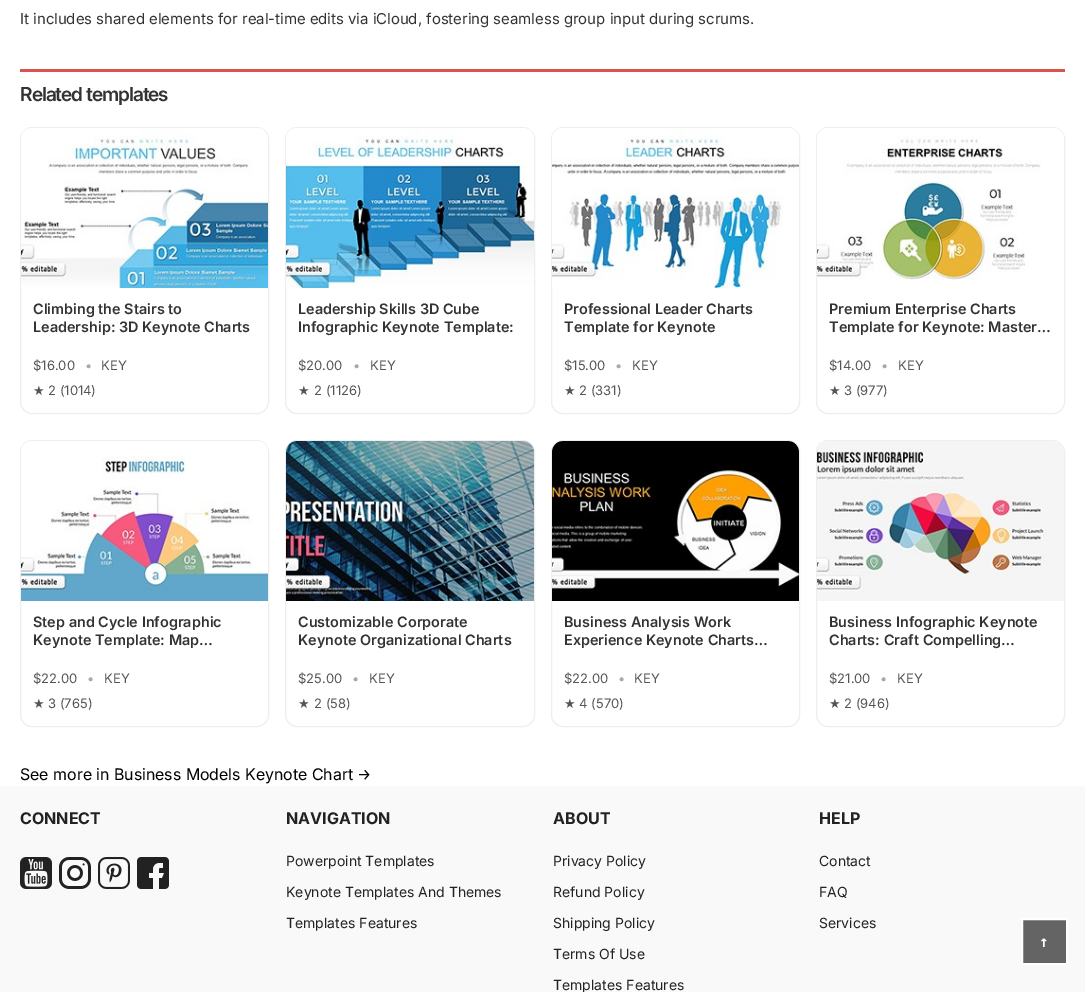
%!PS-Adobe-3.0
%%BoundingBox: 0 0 1085 992
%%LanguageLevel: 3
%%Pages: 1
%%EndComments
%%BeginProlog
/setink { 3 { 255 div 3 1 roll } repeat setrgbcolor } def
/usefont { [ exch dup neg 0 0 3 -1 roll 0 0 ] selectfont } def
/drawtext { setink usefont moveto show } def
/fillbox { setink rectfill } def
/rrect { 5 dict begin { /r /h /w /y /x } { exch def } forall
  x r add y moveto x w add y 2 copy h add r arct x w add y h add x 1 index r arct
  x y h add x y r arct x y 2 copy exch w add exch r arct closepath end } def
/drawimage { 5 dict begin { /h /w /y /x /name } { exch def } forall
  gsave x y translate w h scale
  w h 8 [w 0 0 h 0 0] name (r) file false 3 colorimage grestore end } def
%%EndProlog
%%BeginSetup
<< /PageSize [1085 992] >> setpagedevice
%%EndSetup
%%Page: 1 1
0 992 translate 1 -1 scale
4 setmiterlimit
0 0 1085 992 255 255 255 fillbox
(It includes shared elements for real-time edits via iCloud, fostering seamless group input during scrums.) 20 24 /Inter-Regular 15 51 51 51 drawtext
20 69 1045 3 217 83 79 fillbox
/Inter-SemiBold 19.25 usefont
51 51 51 setink
20 101 moveto -1 0 (Related templates) ashow
238 238 238 setink
20.5 127.5 248 286 11.5 rrect stroke
(assets/img1.rgb) 21 128 247 160 drawimage
(Climbing the Stairs to) 33 314 /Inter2-SemiBold 14.4 51 51 51 drawtext
(Leadership: 3D Keynote Charts) 33 332 /Inter2-SemiBold 14.4 51 51 51 drawtext
($16.00) 33 370 /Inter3-Regular 13 85 85 85 drawtext
(•) 85 370 /Inter3-Regular 13 170 170 170 drawtext
(KEY) 101 370 /Inter3-Regular 13 85 85 85 drawtext
(★) 33 395 /DejaVuSans-Regular 13 85 85 85 drawtext
(2 \(1014\)) 48 395 /Inter3-Regular 13 85 85 85 drawtext
238 238 238 setink
285.5 127.5 249 286 11.5 rrect stroke
(assets/img2.rgb) 286 128 248 160 drawimage
(Leadership Skills 3D Cube) 298 314 /Inter2-SemiBold 14.4 51 51 51 drawtext
(Infographic Keynote Template:) 298 332 /Inter2-SemiBold 14.4 51 51 51 drawtext
($20.00) 298 370 /Inter3-Regular 13 85 85 85 drawtext
(•) 353 370 /Inter3-Regular 13 170 170 170 drawtext
(KEY) 370 370 /Inter3-Regular 13 85 85 85 drawtext
(★) 298 395 /DejaVuSans-Regular 13 85 85 85 drawtext
(2 \(1126\)) 314 395 /Inter3-Regular 13 85 85 85 drawtext
238 238 238 setink
551.5 127.5 248 286 11.5 rrect stroke
(assets/img3.rgb) 552 128 247 160 drawimage
(Professional Leader Charts) 564 314 /Inter2-SemiBold 14.4 51 51 51 drawtext
(Template for Keynote) 564 332 /Inter2-SemiBold 14.4 51 51 51 drawtext
($15.00) 564 370 /Inter3-Regular 13 85 85 85 drawtext
(•) 615 370 /Inter3-Regular 13 170 170 170 drawtext
(KEY) 632 370 /Inter3-Regular 13 85 85 85 drawtext
(★) 564 395 /DejaVuSans-Regular 13 85 85 85 drawtext
(2 \(331\)) 579 395 /Inter3-Regular 13 85 85 85 drawtext
238 238 238 setink
816.5 127.5 248 286 11.5 rrect stroke
(assets/img4.rgb) 817 128 247 152 drawimage
(Premium Enterprise Charts) 829 314 /Inter2-SemiBold 14.4 51 51 51 drawtext
(Template for Keynote: Master…) 829 332 /Inter2-SemiBold 14.4 51 51 51 drawtext
($14.00) 829 370 /Inter3-Regular 13 85 85 85 drawtext
(•) 881 370 /Inter3-Regular 13 170 170 170 drawtext
(KEY) 898 370 /Inter3-Regular 13 85 85 85 drawtext
(★) 829 395 /DejaVuSans-Regular 13 85 85 85 drawtext
(3 \(977\)) 844 395 /Inter3-Regular 13 85 85 85 drawtext
238 238 238 setink
20.5 440.5 248 286 11.5 rrect stroke
(assets/img5.rgb) 21 441 247 160 drawimage
(Step and Cycle Infographic) 33 627 /Inter2-SemiBold 14.4 51 51 51 drawtext
(Keynote Template: Map…) 33 645 /Inter2-SemiBold 14.4 51 51 51 drawtext
($22.00) 33 683 /Inter3-Regular 13 85 85 85 drawtext
(•) 87 683 /Inter3-Regular 13 170 170 170 drawtext
(KEY) 104 683 /Inter3-Regular 13 85 85 85 drawtext
(★) 33 708 /DejaVuSans-Regular 13 85 85 85 drawtext
(3 \(765\)) 48 708 /Inter3-Regular 13 85 85 85 drawtext
238 238 238 setink
285.5 440.5 249 286 11.5 rrect stroke
(assets/img6.rgb) 286 441 248 160 drawimage
(Customizable Corporate) 298 627 /Inter2-SemiBold 14.4 51 51 51 drawtext
(Keynote Organizational Charts) 298 645 /Inter2-SemiBold 14.4 51 51 51 drawtext
($25.00) 298 683 /Inter3-Regular 13 85 85 85 drawtext
(•) 352 683 /Inter3-Regular 13 170 170 170 drawtext
(KEY) 369 683 /Inter3-Regular 13 85 85 85 drawtext
(★) 298 708 /DejaVuSans-Regular 13 85 85 85 drawtext
(2 \(58\)) 314 708 /Inter3-Regular 13 85 85 85 drawtext
238 238 238 setink
551.5 440.5 248 286 11.5 rrect stroke
(assets/img7.rgb) 552 441 247 160 drawimage
(Business Analysis Work) 564 627 /Inter2-SemiBold 14.4 51 51 51 drawtext
(Experience Keynote Charts…) 564 645 /Inter2-SemiBold 14.4 51 51 51 drawtext
($22.00) 564 683 /Inter3-Regular 13 85 85 85 drawtext
(•) 618 683 /Inter3-Regular 13 170 170 170 drawtext
(KEY) 634 683 /Inter3-Regular 13 85 85 85 drawtext
(★) 564 708 /DejaVuSans-Regular 13 85 85 85 drawtext
(4 \(570\)) 579 708 /Inter3-Regular 13 85 85 85 drawtext
238 238 238 setink
816.5 440.5 248 286 11.5 rrect stroke
(assets/img8.rgb) 817 441 247 160 drawimage
(Business Infographic Keynote) 829 627 /Inter2-SemiBold 14.4 51 51 51 drawtext
(Charts: Craft Compelling…) 829 645 /Inter2-SemiBold 14.4 51 51 51 drawtext
($21.00) 829 683 /Inter3-Regular 13 85 85 85 drawtext
(•) 880 683 /Inter3-Regular 13 170 170 170 drawtext
(KEY) 897 683 /Inter3-Regular 13 85 85 85 drawtext
(★) 829 708 /DejaVuSans-Regular 13 85 85 85 drawtext
(2 \(946\)) 844 708 /Inter3-Regular 13 85 85 85 drawtext
(See more in Business Models Keynote Chart) 20 780 /Inter2-Regular 16 0 0 0 drawtext
(→) 357 780 /FiraSans-Regular 16 0 0 0 drawtext
0 786 1085 206 249 249 249 fillbox
(CONNECT) 20 824 /Inter-Bold 16 34 34 34 drawtext
(assets/img9.rgb) 20 857 32 32 drawimage
(assets/img10.rgb) 59 857 32 32 drawimage
(assets/img11.rgb) 98 857 32 32 drawimage
(assets/img12.rgb) 137 857 32 32 drawimage
(NAVIGATION) 286 824 /Inter-Bold 16 34 34 34 drawtext
(Powerpoint Templates) 286 866 /Inter3-Regular 14 34 34 34 drawtext
(Keynote Templates And Themes) 286 897 /Inter3-Regular 14 34 34 34 drawtext
(Templates Features) 286 928 /Inter3-Regular 14 34 34 34 drawtext
(ABOUT) 553 824 /Inter-Bold 16 34 34 34 drawtext
(Privacy Policy) 553 866 /Inter3-Regular 14 34 34 34 drawtext
(Refund Policy) 553 897 /Inter3-Regular 14 34 34 34 drawtext
(Shipping Policy) 553 928 /Inter3-Regular 14 34 34 34 drawtext
(Terms Of Use) 553 959 /Inter3-Regular 14 34 34 34 drawtext
(Templates Features) 553 990 /Inter3-Regular 14 34 34 34 drawtext
(HELP) 819 824 /Inter-Bold 16 34 34 34 drawtext
(Contact) 819 866 /Inter3-Regular 14 34 34 34 drawtext
(FAQ) 819 897 /Inter3-Regular 14 34 34 34 drawtext
(Services) 819 928 /Inter3-Regular 14 34 34 34 drawtext
100 100 100 setink
1022 919 45 45 1 rrect gsave fill grestore
255 255 255 setink
2 setlinewidth
stroke
/DejaVuSansMono-Bold 16 usefont
1039 947 moveto 1 0 (↑) ashow
showpage
%%EOF
